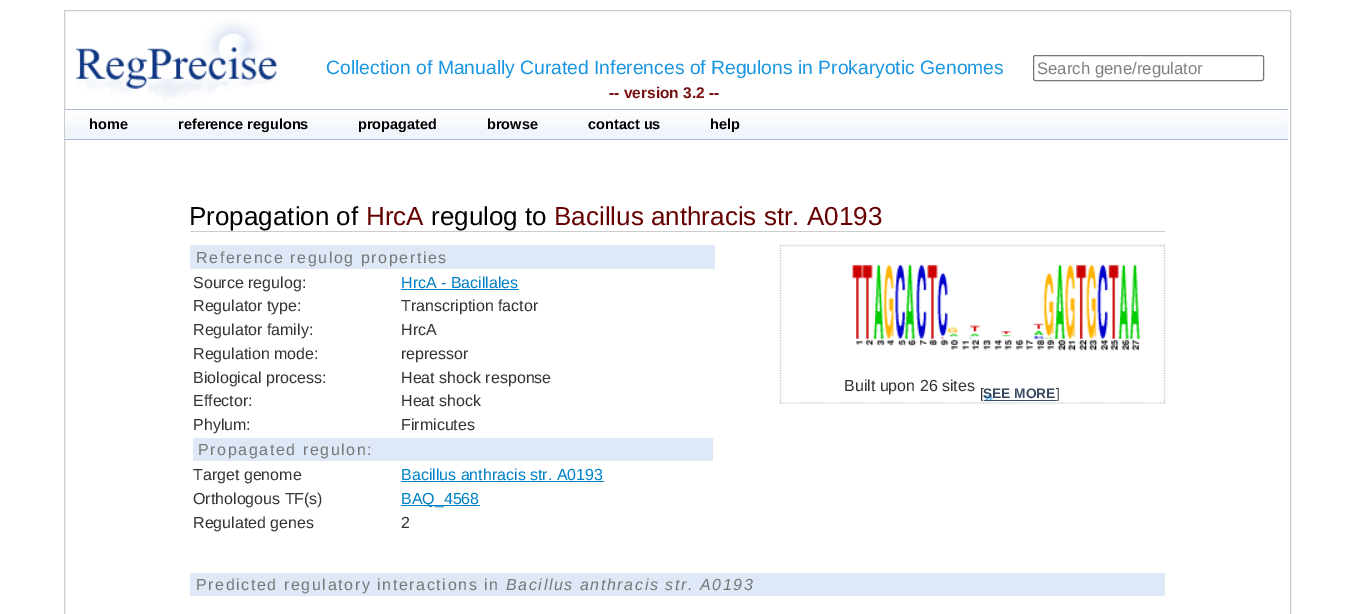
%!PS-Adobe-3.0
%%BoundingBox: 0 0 1353 614
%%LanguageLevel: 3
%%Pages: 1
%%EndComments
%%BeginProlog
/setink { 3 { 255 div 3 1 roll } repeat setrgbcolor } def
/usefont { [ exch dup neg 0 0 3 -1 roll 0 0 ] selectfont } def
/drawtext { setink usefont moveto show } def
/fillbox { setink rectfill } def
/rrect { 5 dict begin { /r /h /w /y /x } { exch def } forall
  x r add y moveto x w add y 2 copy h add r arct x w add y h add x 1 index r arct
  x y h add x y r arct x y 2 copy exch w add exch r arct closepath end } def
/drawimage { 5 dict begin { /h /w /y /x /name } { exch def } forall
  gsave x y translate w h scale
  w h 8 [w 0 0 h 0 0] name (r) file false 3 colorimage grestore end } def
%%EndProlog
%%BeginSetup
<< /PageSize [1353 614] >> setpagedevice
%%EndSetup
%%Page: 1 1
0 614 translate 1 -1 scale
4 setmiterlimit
0 0 1353 614 255 255 255 fillbox
204 204 204 setink
64.5 10.5 1226 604 rectstroke
(assets/img1.rgb) 76 19 203 86 drawimage
(Collection of Manually Curated Inferences of Regulons in Prokaryotic Genomes) 326 74 /LiberationSans-Regular 19.3 27 150 226 drawtext
(-- version 3.2 --) 609 98 /LiberationSans-Bold 15.5 119 17 17 drawtext
118 118 118 setink
1033.5 55.5 230 25 2 rrect stroke
(Search gene/regulator) 1037 74 /LiberationSans-Regular 16.75 128 128 128 drawtext
65 110 1223 29 240 245 251 fillbox
(assets/img2.rgb) 65 110 1223 17 drawimage
65 109 1223 1 171 185 215 fillbox
65 139 1223 1 171 185 215 fillbox
(home) 89 129 /LiberationSans-Bold 14.5 0 0 0 drawtext
(reference regulons) 178 129 /LiberationSans-Bold 14.5 0 0 0 drawtext
(propagated) 358 129 /LiberationSans-Bold 14.5 0 0 0 drawtext
(browse) 487 129 /LiberationSans-Bold 14.5 0 0 0 drawtext
(contact us) 588 129 /LiberationSans-Bold 14.5 0 0 0 drawtext
(help) 710 129 /LiberationSans-Bold 14.5 0 0 0 drawtext
190 231 975 1 204 204 204 fillbox
(Propagation of) 189 225 /LiberationSans-Regular 26 0 0 0 drawtext
(HrcA) 366 225 /LiberationSans-Regular 26 102 0 0 drawtext
(regulog to) 431 225 /LiberationSans-Regular 26 0 0 0 drawtext
(Bacillus anthracis str. A0193) 554 225 /LiberationSans-Regular 26 102 0 0 drawtext
190 245 525 24 223 232 246 fillbox
/LiberationSans-Regular 16 usefont
119 119 119 setink
196 263 moveto 1.6 0 (Reference regulog properties) ashow
(Source regulog:) 193 288 /LiberationSans-Regular 16 51 51 51 drawtext
(HrcA - Bacillales) 401 288 /LiberationSans-Regular 16 0 129 198 drawtext
401 289 118 1 0 129 198 fillbox
(Regulator type:) 193 311 /LiberationSans-Regular 16 51 51 51 drawtext
(Transcription factor) 401 311 /LiberationSans-Regular 16 51 51 51 drawtext
(Regulator family:) 193 335 /LiberationSans-Regular 16 51 51 51 drawtext
(HrcA) 401 335 /LiberationSans-Regular 16 51 51 51 drawtext
(Regulation mode:) 193 359 /LiberationSans-Regular 16 51 51 51 drawtext
(repressor) 401 359 /LiberationSans-Regular 16 51 51 51 drawtext
(Biological process:) 193 383 /LiberationSans-Regular 16 51 51 51 drawtext
(Heat shock response) 401 383 /LiberationSans-Regular 16 51 51 51 drawtext
(Effector:) 193 406 /LiberationSans-Regular 16 51 51 51 drawtext
(Heat shock) 401 406 /LiberationSans-Regular 16 51 51 51 drawtext
(Phylum:) 193 430 /LiberationSans-Regular 16 51 51 51 drawtext
(Firmicutes) 401 430 /LiberationSans-Regular 16 51 51 51 drawtext
193 438 520 23 223 232 246 fillbox
119 119 119 setink
198 455 moveto 1.6 0 (Propagated regulon:) ashow
(Target genome) 193 480 /LiberationSans-Regular 16 51 51 51 drawtext
(Bacillus anthracis str. A0193) 401 480 /LiberationSans-Regular 16 0 129 198 drawtext
401 481 203 1 0 129 198 fillbox
(Orthologous TF\(s\)) 193 504 /LiberationSans-Regular 16 51 51 51 drawtext
401 505 79 1 0 129 198 fillbox
(BAQ_4568) 401 504 /LiberationSans-Regular 16 0 129 198 drawtext
(Regulated genes) 193 528 /LiberationSans-Regular 16 51 51 51 drawtext
(2) 401 528 /LiberationSans-Regular 16 51 51 51 drawtext
204 204 204 setink
1.2 setlinewidth
[1.25 1.25] 0 setdash
780 245.5 moveto 1165 245.5 lineto stroke
1164.5 245 moveto 1164.5 404 lineto stroke
780 403 moveto 1165 403 lineto stroke
780.5 245 moveto 780.5 404 lineto stroke
(assets/img3.rgb) 852 264 289 87 drawimage
(Built upon 26 sites) 844 391 /LiberationSans-Regular 16 51 51 51 drawtext
([) 980 398 /LiberationSans-Regular 13.75 51 51 51 drawtext
(assets/img4.rgb) 983 395 10 7 drawimage
984 400 72 1 60 75 100 fillbox
(SEE MORE) 983 398 /LiberationSans-Bold 13.75 60 75 100 drawtext
(]) 1056 398 /LiberationSans-Regular 13.75 51 51 51 drawtext
190 573 975 23 223 232 246 fillbox
/LiberationSans-Regular 16 usefont
119 119 119 setink
196 590 moveto 1.6 0 (Predicted regulatory interactions in) ashow
/LiberationSans-Italic 16 usefont
506 590 moveto 1.6 0 (Bacillus anthracis str. A0193) ashow
showpage
%%EOF
